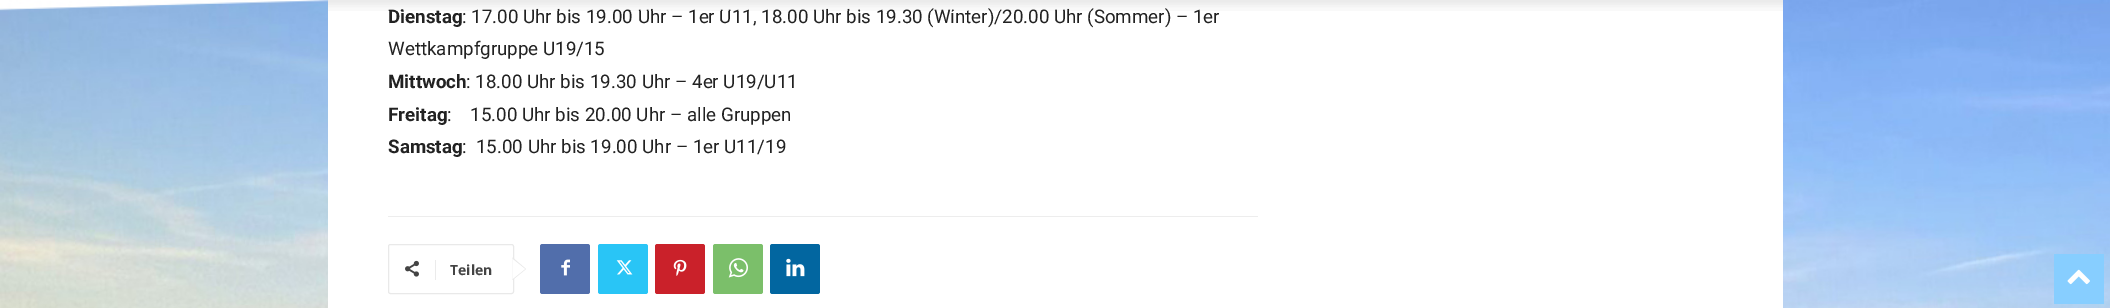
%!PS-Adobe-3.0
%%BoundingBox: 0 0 2110 308
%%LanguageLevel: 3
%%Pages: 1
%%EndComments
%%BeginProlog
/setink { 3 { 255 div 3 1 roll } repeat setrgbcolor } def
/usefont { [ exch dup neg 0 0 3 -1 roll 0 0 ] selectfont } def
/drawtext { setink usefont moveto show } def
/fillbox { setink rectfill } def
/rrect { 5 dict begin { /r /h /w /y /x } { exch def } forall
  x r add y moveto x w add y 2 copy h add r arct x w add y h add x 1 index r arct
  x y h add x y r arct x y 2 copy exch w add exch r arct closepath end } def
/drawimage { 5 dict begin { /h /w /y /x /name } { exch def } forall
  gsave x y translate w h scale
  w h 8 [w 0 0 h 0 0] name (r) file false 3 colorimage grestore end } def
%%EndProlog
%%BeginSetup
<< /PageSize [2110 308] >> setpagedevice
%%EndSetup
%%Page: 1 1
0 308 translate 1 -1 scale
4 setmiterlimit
0 0 2110 308 255 255 255 fillbox
(assets/img1.rgb) 0 0 2110 308 drawimage
328 0 1455 308 255 255 255 fillbox
(Dienstag) 388 23 /Roboto-Bold 18.75 34 34 34 drawtext
(: 17.00 Uhr bis 19.00 Uhr – 1er U11, 18.00 Uhr bis 19.30 \(Winter\)/20.00 Uhr \(Sommer\) – 1er) 462 23 /Roboto-Regular 18.75 34 34 34 drawtext
(assets/img2.rgb) 328 0 1455 11 drawimage
(Wettkampfgruppe U19/15) 388 55 /Roboto-Regular 18.75 34 34 34 drawtext
(Mittwoch) 388 88 /Roboto-Bold 18.75 34 34 34 drawtext
(: 18.00 Uhr bis 19.30 Uhr – 4er U19/U11) 466 88 /Roboto-Regular 18.75 34 34 34 drawtext
(Freitag) 388 121 /Roboto-Bold 18.75 34 34 34 drawtext
(:    15.00 Uhr bis 20.00 Uhr – alle Gruppen) 447 121 /Roboto-Regular 18.75 34 34 34 drawtext
(Samstag) 388 153 /Roboto-Bold 18.75 34 34 34 drawtext
(:  15.00 Uhr bis 19.00 Uhr – 1er U11/19) 462 153 /Roboto-Regular 18.75 34 34 34 drawtext
388 216 870 1 237 237 237 fillbox
233 233 233 setink
388.5 244.5 125 49 2 rrect stroke
512.5 280 moveto 512.5 257.5 lineto 526 269 lineto closepath fill
(assets/img3.rgb) 405 260 14 17 drawimage
435 260 1 20 235 235 235 fillbox
(Teilen) 450 275 /OpenSans-Bold 14 68 68 68 drawtext
255 255 255 setink
512.5 279 moveto 512.5 259 lineto 525 269 lineto closepath fill
81 110 171 setink
540 244 50 50 2.5 rrect fill
(assets/img4.rgb) 561 259 9 17 drawimage
41 197 246 setink
598 244 50 50 2.5 rrect fill
(assets/img5.rgb) 616 260 17 15 drawimage
202 33 42 setink
655 244 50 50 2.5 rrect fill
(assets/img6.rgb) 673 259 14 17 drawimage
123 191 106 setink
713 244 50 50 2.5 rrect fill
(assets/img7.rgb) 728 258 20 20 drawimage
2 102 160 setink
770 244 50 50 2.5 rrect fill
(assets/img8.rgb) 786 258 19 19 drawimage
2054 254 50 50 135 206 255 fillbox
(assets/img9.rgb) 2067 269 23 16 drawimage
showpage
%%EOF
